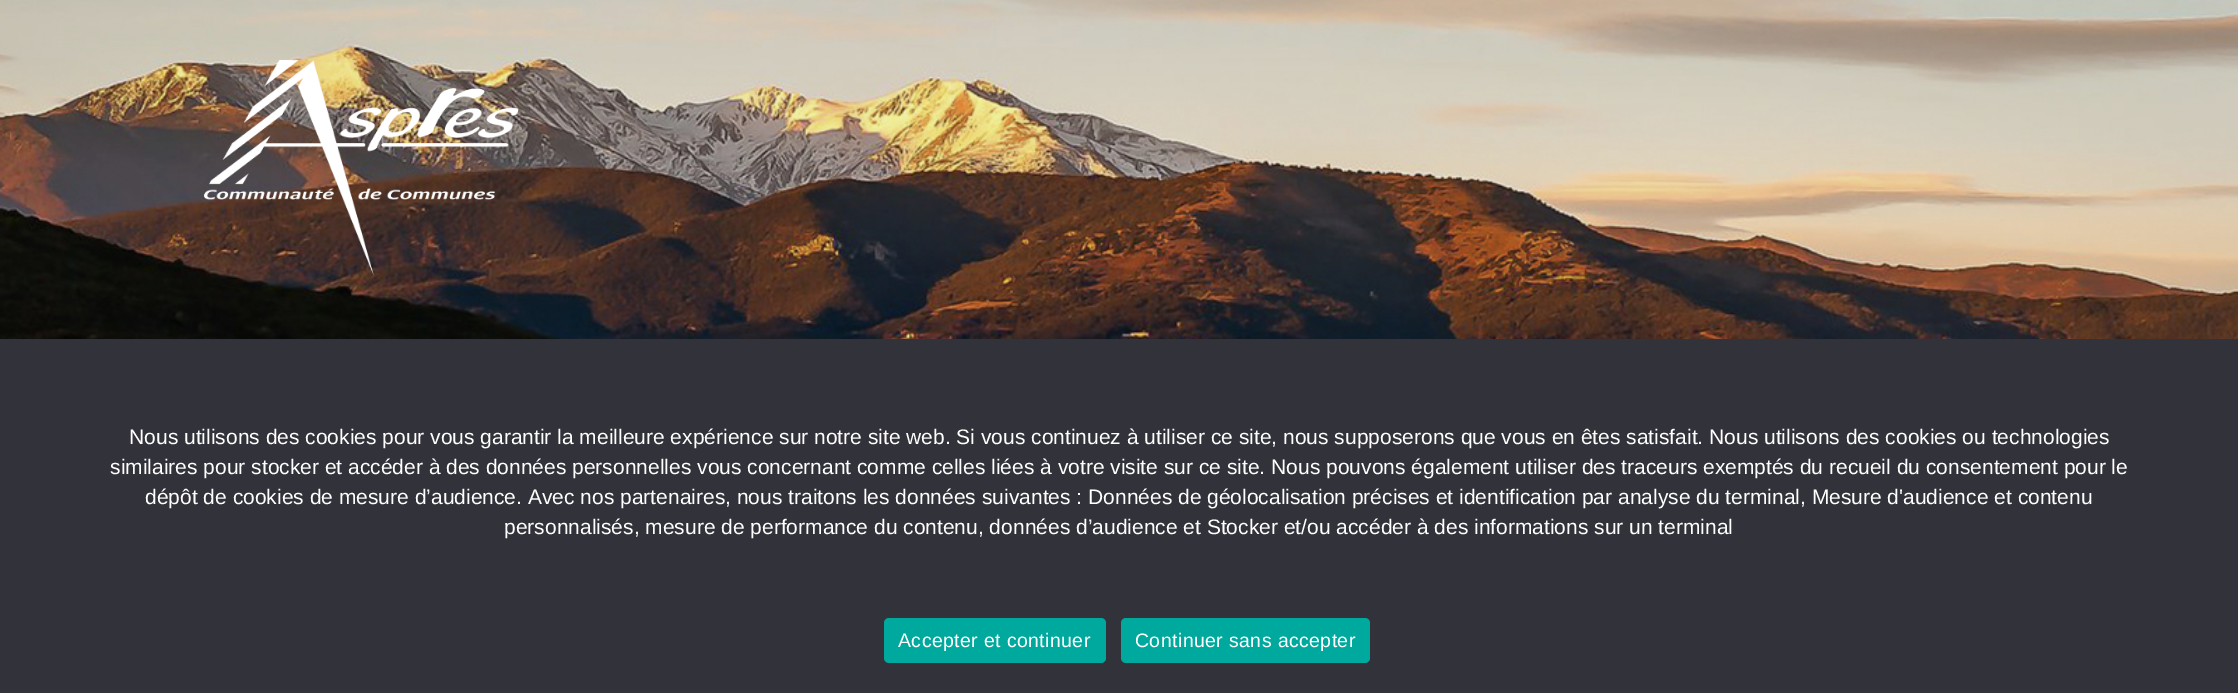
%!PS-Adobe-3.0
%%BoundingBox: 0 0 2238 693
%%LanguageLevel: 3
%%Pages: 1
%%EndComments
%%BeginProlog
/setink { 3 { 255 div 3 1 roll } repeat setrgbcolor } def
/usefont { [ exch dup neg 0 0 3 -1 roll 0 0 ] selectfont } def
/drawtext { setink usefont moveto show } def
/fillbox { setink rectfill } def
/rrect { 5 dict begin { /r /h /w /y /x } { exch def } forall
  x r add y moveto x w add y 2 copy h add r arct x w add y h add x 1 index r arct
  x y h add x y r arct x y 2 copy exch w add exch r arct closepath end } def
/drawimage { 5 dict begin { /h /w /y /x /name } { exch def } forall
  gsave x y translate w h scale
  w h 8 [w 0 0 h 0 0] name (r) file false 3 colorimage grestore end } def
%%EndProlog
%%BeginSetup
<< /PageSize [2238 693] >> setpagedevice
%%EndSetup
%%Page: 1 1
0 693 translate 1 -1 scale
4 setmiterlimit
0 0 2238 693 255 255 255 fillbox
(assets/img1.rgb) 0 0 2238 339 drawimage
(assets/img2.rgb) 204 60 315 216 drawimage
0 339 2238 354 50 50 58 fillbox
(Nous utilisons des cookies pour vous garantir la meilleure expérience sur notre site web. Si vous continuez à utiliser ce site, nous supposerons que vous en êtes satisfait. Nous utilisons des cookies ou technologies) 129 444 /LiberationSans-Regular 21 255 255 255 drawtext
(similaires pour stocker et accéder à des données personnelles vous concernant comme celles liées à votre visite sur ce site. Nous pouvons également utiliser des traceurs exemptés du recueil du consentement pour le) 110 474 /LiberationSans-Regular 21 255 255 255 drawtext
(dépôt de cookies de mesure d’audience. Avec nos partenaires, nous traitons les données suivantes : Données de géolocalisation précises et identification par analyse du terminal, Mesure d'audience et contenu) 145 504 /LiberationSans-Regular 21 255 255 255 drawtext
(personnalisés, mesure de performance du contenu, données d’audience et Stocker et/ou accéder à des informations sur un terminal) 504 534 /LiberationSans-Regular 21 255 255 255 drawtext
0 169 157 setink
884 618 222 45 5 rrect fill
/LiberationSans-Regular 19.5 usefont
255 255 255 setink
898 647 moveto 0.4 0 (Accepter et continuer) ashow
0 169 157 setink
1121 618 249 45 5 rrect fill
255 255 255 setink
1135 647 moveto 0.4 0 (Continuer sans accepter) ashow
showpage
%%EOF
